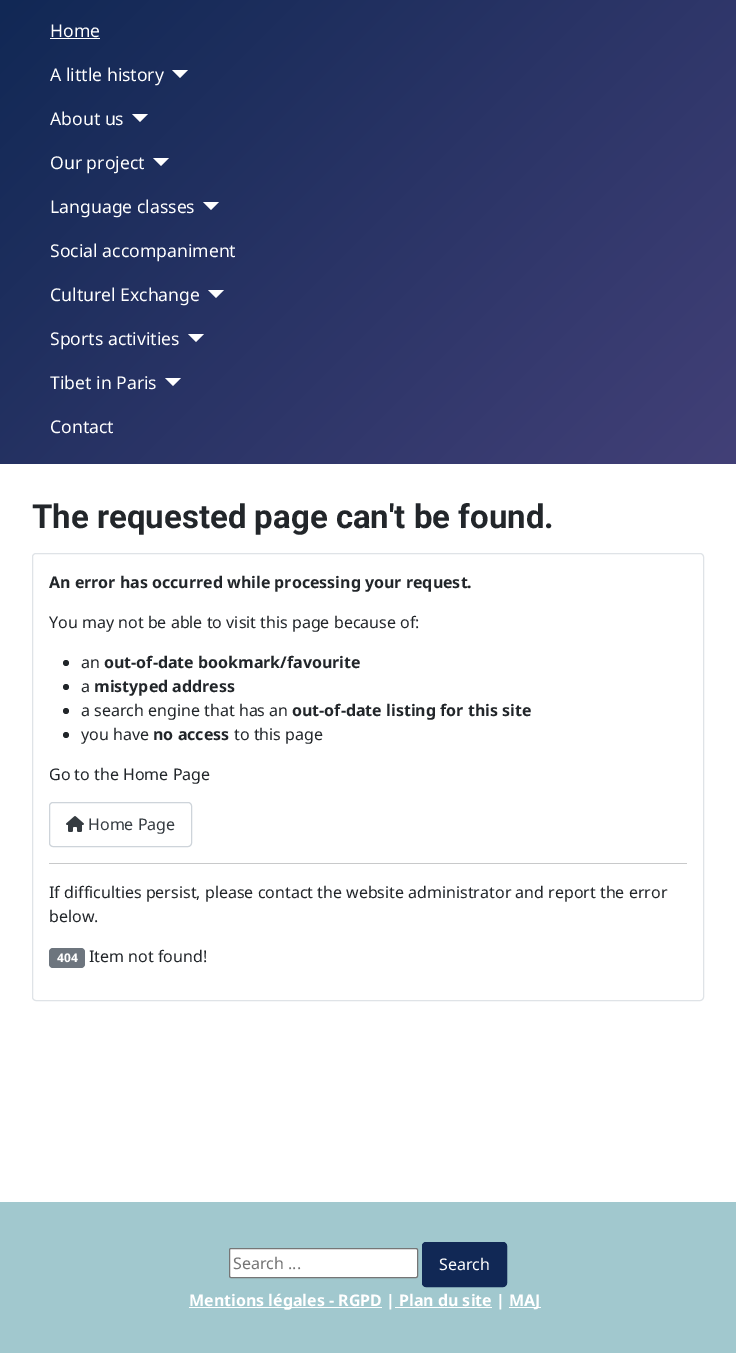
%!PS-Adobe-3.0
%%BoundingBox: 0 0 736 1353
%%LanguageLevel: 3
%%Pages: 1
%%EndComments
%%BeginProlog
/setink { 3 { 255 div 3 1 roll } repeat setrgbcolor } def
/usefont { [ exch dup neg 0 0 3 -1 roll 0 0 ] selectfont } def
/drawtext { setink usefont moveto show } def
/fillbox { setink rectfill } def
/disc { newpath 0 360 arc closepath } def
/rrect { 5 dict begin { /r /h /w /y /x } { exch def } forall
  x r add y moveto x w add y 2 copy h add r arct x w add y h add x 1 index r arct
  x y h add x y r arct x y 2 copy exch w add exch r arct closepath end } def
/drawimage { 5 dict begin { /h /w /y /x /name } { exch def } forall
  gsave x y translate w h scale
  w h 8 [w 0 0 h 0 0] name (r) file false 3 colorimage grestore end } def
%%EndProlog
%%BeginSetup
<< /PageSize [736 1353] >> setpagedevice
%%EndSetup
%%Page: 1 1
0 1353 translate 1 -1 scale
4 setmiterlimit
0 0 736 1353 255 255 255 fillbox
gsave 0 0 moveto 736 0 lineto 736 464 lineto 0 464 lineto closepath clip newpath
<< /ShadingType 2 /ColorSpace /DeviceRGB /Coords [68 -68 668 532] /Extend [true true] /Function << /FunctionType 2 /Domain [0 1] /C0 [0.067 0.157 0.333] /C1 [0.259 0.251 0.467] /N 1 >> >> shfill grestore
(Home) 50 37 /NotoSans-Regular 17.6 255 255 255 drawtext
50 38 50 1 255 255 255 fillbox
(A little history) 50 81 /NotoSans-Regular 17.6 255 255 255 drawtext
172 70 moveto 188 70 lineto 180 78 lineto closepath fill
(About us) 50 125 /NotoSans-Regular 17.6 255 255 255 drawtext
132 114 moveto 148 114 lineto 140 122 lineto closepath fill
(Our project) 50 169 /NotoSans-Regular 17.6 255 255 255 drawtext
153 158 moveto 169 158 lineto 161 166 lineto closepath fill
(Language classes) 50 213 /NotoSans-Regular 17.6 255 255 255 drawtext
203 202 moveto 219 202 lineto 211 210 lineto closepath fill
(Social accompaniment) 50 257 /NotoSans-Regular 17.6 255 255 255 drawtext
(Culturel Exchange) 50 301 /NotoSans-Regular 17.6 255 255 255 drawtext
208 290 moveto 224 290 lineto 216 298 lineto closepath fill
(Sports activities) 50 345 /NotoSans-Regular 17.6 255 255 255 drawtext
188 334 moveto 204 334 lineto 196 342 lineto closepath fill
(Tibet in Paris) 50 389 /NotoSans-Regular 17.6 255 255 255 drawtext
165 378 moveto 181 378 lineto 173 386 lineto closepath fill
(Contact) 50 433 /NotoSans-Regular 17.6 255 255 255 drawtext
(The requested page can't be found.) 32 528 /Roboto-Bold 33 34 38 42 drawtext
223 227 231 setink
32.5 553.5 671 447 3.5 rrect stroke
(An error has occurred while processing your request.) 49 588 /NotoSans-Bold 16 34 38 42 drawtext
(You may not be able to visit this page because of:) 49 628 /NotoSans-Regular 16 34 38 42 drawtext
66 663 3 disc fill
(an) 81 668 /NotoSans-Regular 16 34 38 42 drawtext
(out-of-date bookmark/favourite) 104 668 /NotoSans-Bold 16 34 38 42 drawtext
66 687 3 disc fill
(a) 81 692 /NotoSans-Regular 16 34 38 42 drawtext
(mistyped address) 94 692 /NotoSans-Bold 16 34 38 42 drawtext
66 711 3 disc fill
(a search engine that has an) 81 716 /NotoSans-Regular 16 34 38 42 drawtext
(out-of-date listing for this site) 292 716 /NotoSans-Bold 16 34 38 42 drawtext
66 735 3 disc fill
(you have) 81 740 /NotoSans-Regular 16 34 38 42 drawtext
(no access) 153 740 /NotoSans-Bold 16 34 38 42 drawtext
(to this page) 234 740 /NotoSans-Regular 16 34 38 42 drawtext
(Go to the Home Page) 49 780 /NotoSans-Regular 16 34 38 42 drawtext
206 212 218 setink
49.5 802.5 142 44 3.5 rrect stroke
(assets/img1.rgb) 66 816 18 16 drawimage
(Home Page) 88 830 /NotoSans-Regular 16 53 59 65 drawtext
49 863 638 1 200 201 202 fillbox
(If difficulties persist, please contact the website administrator and report the error) 49 898 /NotoSans-Regular 16 34 38 42 drawtext
(below.) 49 922 /NotoSans-Regular 16 34 38 42 drawtext
109 117 126 setink
49 948 36 20 4 rrect fill
(404) 57 962 /NotoSans-Bold 12 255 255 255 drawtext
(Item not found!) 89 962 /NotoSans-Regular 16 34 38 42 drawtext
0 1202 736 151 161 200 206 fillbox
255 255 255 setink
229.5 1248.5 188 29 1.5 rrect gsave fill grestore
118 118 118 setink
stroke
(Search ...) 233 1269 /NotoSans-Regular 16 117 117 117 drawtext
17 40 85 setink
422.5 1242.5 84 44 3.5 rrect gsave fill grestore
stroke
(Search) 439 1270 /NotoSans-Regular 16 255 255 255 drawtext
189 1307 193 1 255 255 255 fillbox
(Mentions légales - RGPD | Plan du site |) 189 1306 /NotoSans-Bold 16 255 255 255 drawtext
395 1307 97 1 255 255 255 fillbox
509 1307 32 1 255 255 255 fillbox
(MAJ) 509 1306 /NotoSans-Bold 16 255 255 255 drawtext
showpage
%%EOF
